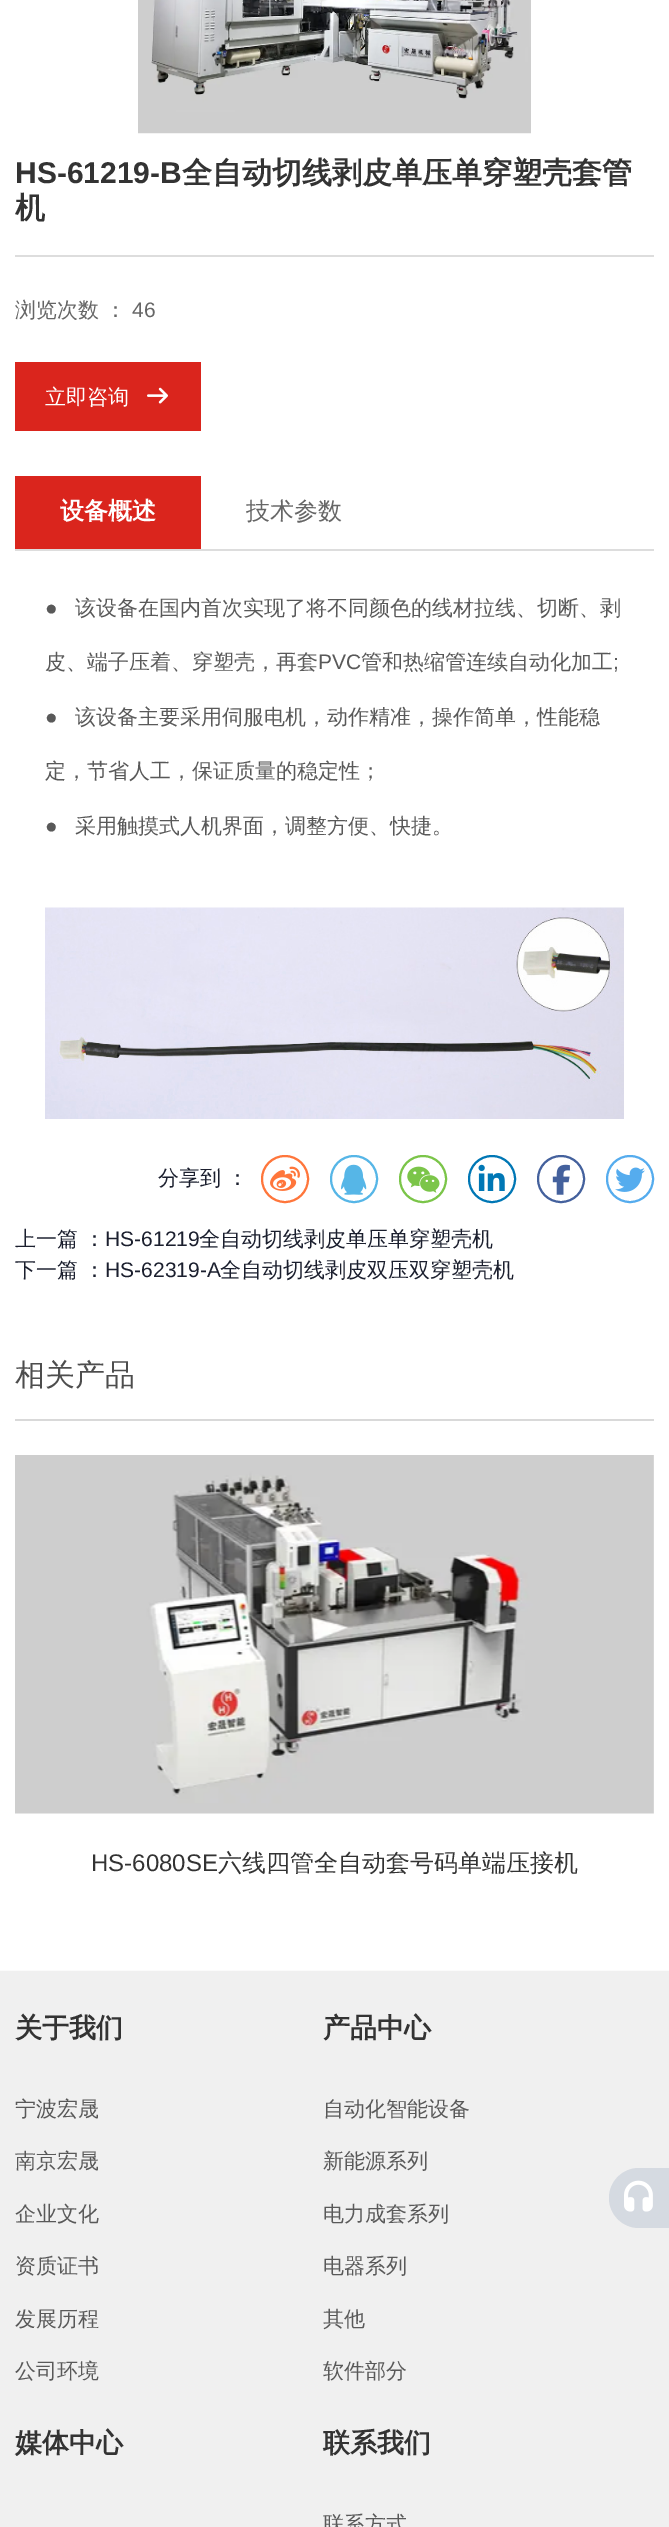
%!PS-Adobe-3.0
%%BoundingBox: 0 0 669 2527
%%LanguageLevel: 3
%%Pages: 1
%%EndComments
%%BeginProlog
/setink { 3 { 255 div 3 1 roll } repeat setrgbcolor } def
/usefont { [ exch dup neg 0 0 3 -1 roll 0 0 ] selectfont } def
/drawtext { setink usefont moveto show } def
/fillbox { setink rectfill } def
/disc { newpath 0 360 arc closepath } def
/drawimage { 5 dict begin { /h /w /y /x /name } { exch def } forall
  gsave x y translate w h scale
  w h 8 [w 0 0 h 0 0] name (r) file false 3 colorimage grestore end } def
%%EndProlog
%%BeginSetup
<< /PageSize [669 2527] >> setpagedevice
%%EndSetup
%%Page: 1 1
0 2527 translate 1 -1 scale
4 setmiterlimit
0 0 669 2527 255 255 255 fillbox
(assets/img1.rgb) 138 0 393 134 drawimage
(HS-61219-B) 15 183 /LiberationSans-Bold 30 51 51 51 drawtext
(全自动切线剥皮单压单穿塑壳套管) 182 183 /WenQuanYiZenHei-Bold 30 51 51 51 drawtext
(机) 15 218 /WenQuanYiZenHei-Bold 30 51 51 51 drawtext
15 255 639 2 221 221 221 fillbox
(浏览次数 ：) 15 317 /WenQuanYiZenHei-Medium 21 102 102 102 drawtext
(46) 132 317 /LiberationSans-Regular 21 102 102 102 drawtext
15 362 186 69 218 37 29 fillbox
(立即咨询) 45 404 /WenQuanYiZenHei-Medium 21 255 255 255 drawtext
(assets/img2.rgb) 147 387 21 17 drawimage
15 549 639 2 221 221 221 fillbox
15 476 186 73 218 37 29 fillbox
(设备概述) 60 519 /WenQuanYiZenHei-Bold 24 255 255 255 drawtext
(技术参数) 246 519 /WenQuanYiZenHei-Medium 24 102 102 102 drawtext
(●) 45 615 /LiberationSans-Regular 21 89 89 89 drawtext
(该设备在国内首次实现了将不同颜色的线材拉线、切断、剥) 75 615 /WenQuanYiZenHei-Medium 21 89 89 89 drawtext
(皮、端子压着、穿塑壳，再套) 45 669 /WenQuanYiZenHei-Medium 21 89 89 89 drawtext
(PVC) 318 669 /LiberationSans-Regular 21 89 89 89 drawtext
(管和热缩管连续自动化加工) 361 669 /WenQuanYiZenHei-Medium 21 89 89 89 drawtext
(;) 613 669 /LiberationSans-Regular 21 89 89 89 drawtext
(●) 45 724 /LiberationSans-Regular 21 89 89 89 drawtext
(该设备主要采用伺服电机，动作精准，操作简单，性能稳) 75 724 /WenQuanYiZenHei-Medium 21 89 89 89 drawtext
(定，节省人工，保证质量的稳定性；) 45 778 /WenQuanYiZenHei-Medium 21 89 89 89 drawtext
(●) 45 833 /LiberationSans-Regular 21 89 89 89 drawtext
(采用触摸式人机界面，调整方便、快捷。) 75 833 /WenQuanYiZenHei-Medium 21 89 89 89 drawtext
(assets/img3.rgb) 45 907 579 212 drawimage
(分享到 ：) 158 1185 /WenQuanYiZenHei-Medium 21 27 31 46 drawtext
255 118 59 setink
2 setlinewidth
285 1179 23 disc stroke
(assets/img4.rgb) 270 1166 30 25 drawimage
86 182 231 setink
354 1179 23 disc stroke
(assets/img5.rgb) 341 1164 26 31 drawimage
123 197 73 setink
423 1179 23 disc stroke
(assets/img6.rgb) 407 1166 33 27 drawimage
0 119 181 setink
492 1179 23 disc stroke
(assets/img7.rgb) 478 1164 27 27 drawimage
68 97 157 setink
561 1179 23 disc stroke
(assets/img8.rgb) 552 1164 18 31 drawimage
85 172 238 setink
630 1179 23 disc stroke
(assets/img9.rgb) 615 1167 30 25 drawimage
(上一篇 ：) 15 1246 /WenQuanYiZenHei-Medium 21 27 31 46 drawtext
(HS-61219) 105 1246 /LiberationSans-Regular 21 27 31 46 drawtext
(全自动切线剥皮单压单穿塑壳机) 199 1246 /WenQuanYiZenHei-Medium 21 27 31 46 drawtext
(下一篇 ：) 15 1277 /WenQuanYiZenHei-Medium 21 27 31 46 drawtext
(HS-62319-A) 105 1277 /LiberationSans-Regular 21 27 31 46 drawtext
(全自动切线剥皮双压双穿塑壳机) 220 1277 /WenQuanYiZenHei-Medium 21 27 31 46 drawtext
15 1419 639 2 217 217 217 fillbox
(相关产品) 15 1385 /WenQuanYiZenHei-Medium 30 77 77 77 drawtext
(assets/img10.rgb) 15 1455 639 359 drawimage
(HS-6080SE) 91 1871 /LiberationSans-Regular 24 51 51 51 drawtext
(六线四管全自动套号码单端压接机) 218 1871 /WenQuanYiZenHei-Medium 24 51 51 51 drawtext
0 1971 669 556 240 240 240 fillbox
(assets/img11.rgb) 0 1970 669 1 drawimage
(关于我们) 15 2037 /WenQuanYiZenHei-Bold 27 51 51 51 drawtext
(宁波宏晟) 15 2116 /WenQuanYiZenHei-Medium 21 89 89 89 drawtext
(南京宏晟) 15 2168 /WenQuanYiZenHei-Medium 21 89 89 89 drawtext
(企业文化) 15 2221 /WenQuanYiZenHei-Medium 21 89 89 89 drawtext
(资质证书) 15 2273 /WenQuanYiZenHei-Medium 21 89 89 89 drawtext
(发展历程) 15 2326 /WenQuanYiZenHei-Medium 21 89 89 89 drawtext
(公司环境) 15 2378 /WenQuanYiZenHei-Medium 21 89 89 89 drawtext
(产品中心) 323 2037 /WenQuanYiZenHei-Bold 27 51 51 51 drawtext
(自动化智能设备) 323 2116 /WenQuanYiZenHei-Medium 21 89 89 89 drawtext
(新能源系列) 323 2168 /WenQuanYiZenHei-Medium 21 89 89 89 drawtext
(电力成套系列) 323 2221 /WenQuanYiZenHei-Medium 21 89 89 89 drawtext
(电器系列) 323 2273 /WenQuanYiZenHei-Medium 21 89 89 89 drawtext
(其他) 323 2326 /WenQuanYiZenHei-Medium 21 89 89 89 drawtext
(软件部分) 323 2378 /WenQuanYiZenHei-Medium 21 89 89 89 drawtext
(媒体中心) 15 2452 /WenQuanYiZenHei-Bold 27 51 51 51 drawtext
(联系我们) 323 2452 /WenQuanYiZenHei-Bold 27 51 51 51 drawtext
(联系方式) 323 2531 /WenQuanYiZenHei-Medium 21 89 89 89 drawtext
213 218 225 setink
639 2168 moveto 669 2168 lineto 669 2228 lineto 639 2228 lineto 622.5 2228 609 2214.5 609 2198 curveto 609 2181.5 622.5 2168 639 2168 curveto closepath fill
(assets/img12.rgb) 624 2180 29 32 drawimage
showpage
%%EOF
